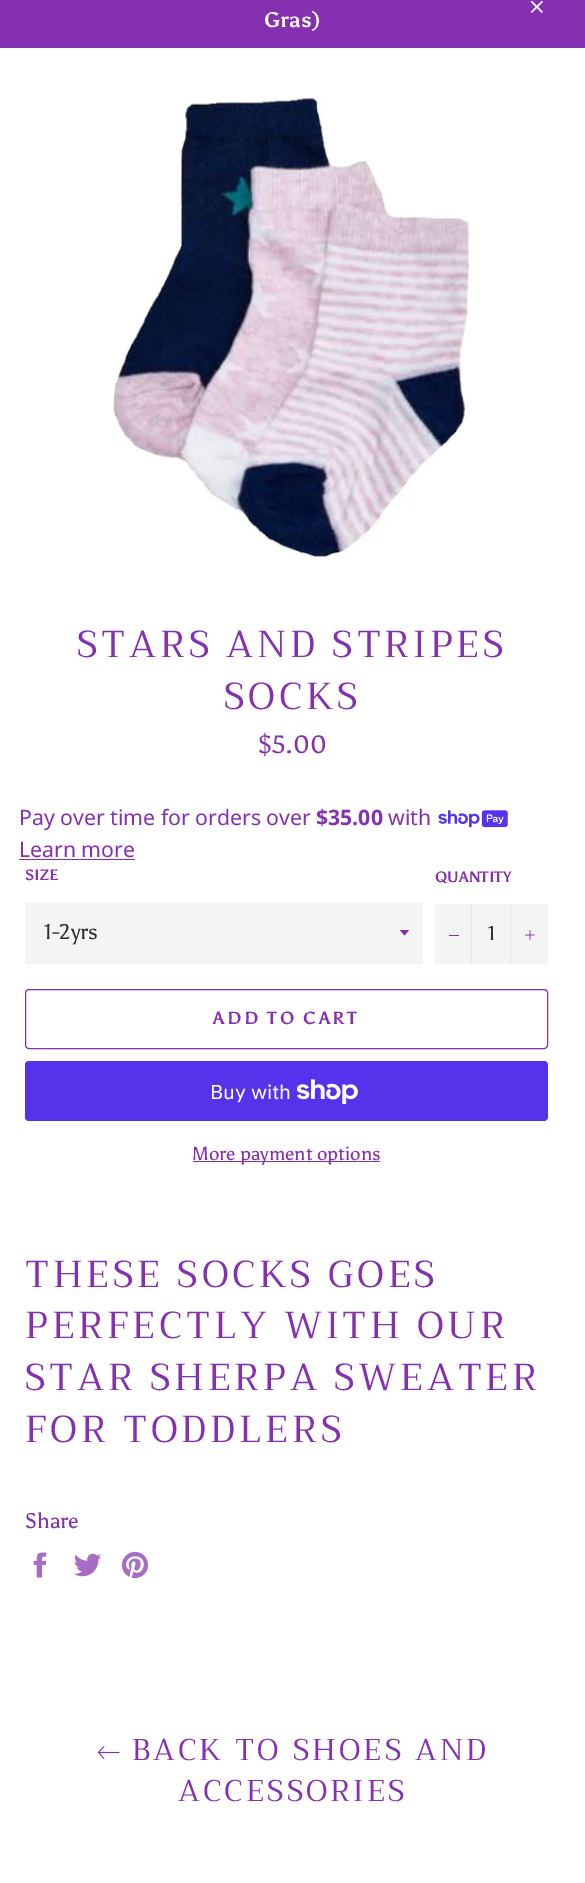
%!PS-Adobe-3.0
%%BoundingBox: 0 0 585 1883
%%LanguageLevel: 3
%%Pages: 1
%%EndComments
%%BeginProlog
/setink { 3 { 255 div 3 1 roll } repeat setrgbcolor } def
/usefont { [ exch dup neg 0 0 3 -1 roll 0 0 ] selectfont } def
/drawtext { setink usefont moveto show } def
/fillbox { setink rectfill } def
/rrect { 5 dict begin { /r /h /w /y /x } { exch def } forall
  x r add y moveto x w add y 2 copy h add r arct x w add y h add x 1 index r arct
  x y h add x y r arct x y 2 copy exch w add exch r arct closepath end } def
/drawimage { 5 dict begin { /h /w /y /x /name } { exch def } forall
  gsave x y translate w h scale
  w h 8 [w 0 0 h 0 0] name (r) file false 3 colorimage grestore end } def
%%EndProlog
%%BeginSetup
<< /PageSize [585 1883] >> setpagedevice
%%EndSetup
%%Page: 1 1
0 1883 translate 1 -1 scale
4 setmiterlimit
0 0 585 1883 255 255 255 fillbox
0 0 585 48 133 48 176 fillbox
(assets/img1.rgb) 530 0 13 13 drawimage
(Gras\)) 264 27 /Asul-Bold 21.25 255 255 255 drawtext
(assets/img2.rgb) 113 96 358 464 drawimage
/Trirong-Regular 37.5 usefont
133 48 176 setink
77 657 moveto 3.75 0 (STARS AND STRIPES) ashow
224 709 moveto 3.75 0 (SOCKS) ashow
($5.00) 258 753 /Asul-Regular 25 133 48 176 drawtext
(Pay over time for orders over) 19 825 /NotoSans-Regular 21.25 133 48 176 drawtext
($35.00) 316 825 /NotoSans-Bold 21.25 133 48 176 drawtext
(with) 388 825 /NotoSans-Regular 21.25 133 48 176 drawtext
(assets/img3.rgb) 438 810 70 18 drawimage
(Learn more) 19 857 /NotoSans-Regular 21.25 133 48 176 drawtext
19 859 116 1 129 45 171 fillbox
(SIZE) 25 880 /Asul-Bold 15 133 48 176 drawtext
25 903 398 61 244 244 244 fillbox
129 45 171 setink
400 930 moveto 404.5 935.5 lineto 409 930 lineto closepath fill
(1-2yrs) 44 939 /Asul-Regular 21.25 51 51 51 drawtext
(QUANTITY) 435 882 /Asul-Bold 15 133 48 176 drawtext
435 904 113 60 244 244 244 fillbox
471 904 1 60 231 231 231 fillbox
449 935 10 1 129 45 171 fillbox
(1) 488 940 /Asul-Regular 20 51 51 51 drawtext
510 904 1 60 231 231 231 fillbox
(assets/img4.rgb) 525 930 10 10 drawimage
133 48 176 setink
25.5 989.5 522 59 3.5 rrect stroke
/Asul-Bold 17.5 usefont
213 1024 moveto 2.6 0 (ADD TO CART) ashow
84 51 235 setink
25 1061 523 60 4 rrect fill
(Buy with) 210 1099 /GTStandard-Regular 20 255 255 255 drawtext
(assets/img5.rgb) 296 1079 62 25 drawimage
193 1161 187 1 133 48 176 fillbox
(More payment options) 192 1160 /Asul-Regular 18.75 133 48 176 drawtext
/Trirong-Regular 37.5 usefont
25 1287 moveto 3.75 0 (THESE SOCKS GOES) ashow
25 1338 moveto 3.75 0 (PERFECTLY WITH OUR) ashow
25 1390 moveto 3.75 0 (STAR SHERPA SWEATER) ashow
25 1442 moveto 3.75 0 (FOR TODDLERS) ashow
(Share) 25 1528 /Asul-Regular 21.25 133 48 176 drawtext
(assets/img6.rgb) 33 1552 14 26 drawimage
(assets/img7.rgb) 73 1553 29 24 drawimage
(assets/img8.rgb) 121 1551 28 28 drawimage
(assets/img9.rgb) 97 1746 23 13 drawimage
/Trirong-Regular 30 usefont
132 1760 moveto 3 0 (BACK TO SHOES AND) ashow
178 1801 moveto 3 0 (ACCESSORIES) ashow
showpage
%%EOF
